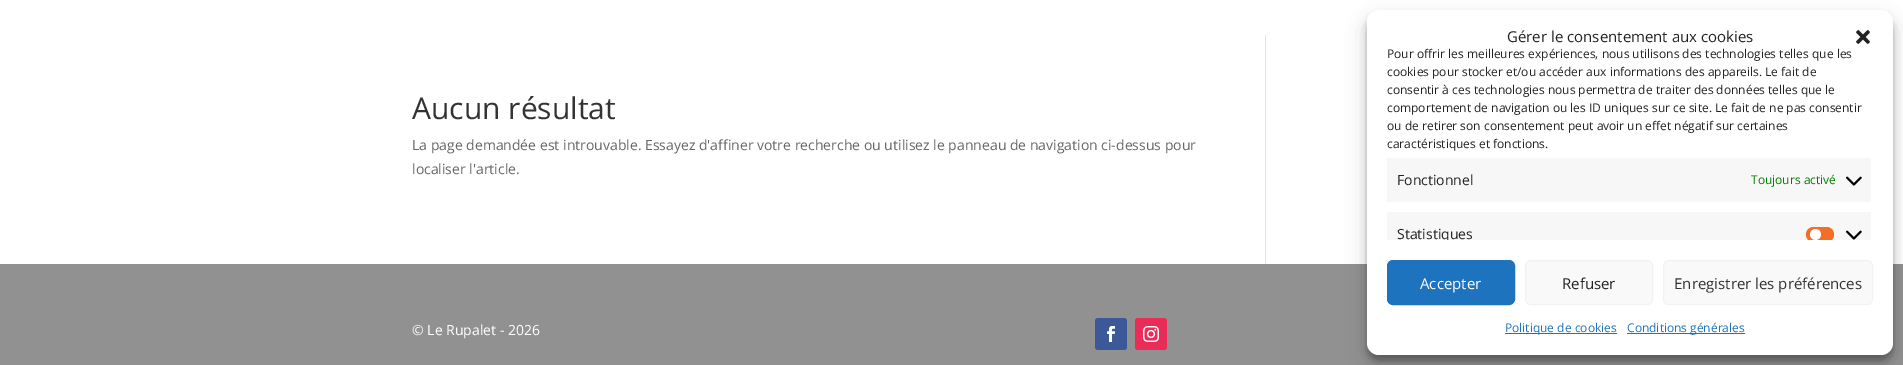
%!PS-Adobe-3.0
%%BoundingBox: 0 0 1903 365
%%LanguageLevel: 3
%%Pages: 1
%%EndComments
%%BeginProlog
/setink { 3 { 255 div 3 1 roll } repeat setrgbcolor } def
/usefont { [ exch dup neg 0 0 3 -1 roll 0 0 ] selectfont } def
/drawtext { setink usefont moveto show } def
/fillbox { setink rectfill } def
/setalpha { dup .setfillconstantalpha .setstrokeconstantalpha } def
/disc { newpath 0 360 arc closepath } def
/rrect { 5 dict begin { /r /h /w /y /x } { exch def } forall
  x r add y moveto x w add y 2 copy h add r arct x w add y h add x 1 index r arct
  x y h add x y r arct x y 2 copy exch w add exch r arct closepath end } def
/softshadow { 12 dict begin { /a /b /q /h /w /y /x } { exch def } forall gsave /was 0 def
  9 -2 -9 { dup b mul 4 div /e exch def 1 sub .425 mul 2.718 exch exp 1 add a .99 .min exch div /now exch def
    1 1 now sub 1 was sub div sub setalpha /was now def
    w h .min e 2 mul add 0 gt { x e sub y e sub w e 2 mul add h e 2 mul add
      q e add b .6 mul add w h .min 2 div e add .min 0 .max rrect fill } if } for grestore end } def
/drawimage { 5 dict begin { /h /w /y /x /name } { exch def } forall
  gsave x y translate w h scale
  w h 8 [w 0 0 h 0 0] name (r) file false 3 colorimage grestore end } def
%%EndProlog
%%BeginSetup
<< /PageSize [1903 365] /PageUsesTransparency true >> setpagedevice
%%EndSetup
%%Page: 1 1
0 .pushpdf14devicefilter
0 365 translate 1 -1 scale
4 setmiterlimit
0 0 1903 365 255 255 255 fillbox
(Aucun résultat) 412 119 /OpenSans-Regular 30 51 51 51 drawtext
(La page demandée est introuvable. Essayez d'affiner votre recherche ou utilisez le panneau de navigation ci-dessus pour) 412 150 /OpenSans-Regular 14 102 102 102 drawtext
(localiser l'article.) 412 174 /OpenSans-Regular 14 102 102 102 drawtext
1265 35 1 229 226 226 226 fillbox
0 264 1903 101 145 145 145 fillbox
(© Le Rupalet - 2026) 412 335 /OpenSans-Regular 14 255 255 255 drawtext
59 89 152 setink
1095 318 32 32 3 rrect fill
(assets/img1.rgb) 1107 326 8 16 drawimage
234 44 89 setink
1135 318 32 32 3 rrect fill
(assets/img2.rgb) 1143 326 16 16 drawimage
0 0 0 setink
1367 16 526 345 12 3 0.23 softshadow
1367 20 526 345 12 10 0.19 softshadow
255 255 255 setink
1367 10 526 345 12 rrect fill
(Gérer le consentement aux cookies) 1507 42 /OpenSans-Regular 15 34 34 34 drawtext
(assets/img3.rgb) 1856 30 14 14 drawimage
(Pour offrir les meilleures expériences, nous utilisons des technologies telles que les) 1387 58 /OpenSans-Regular 12 34 34 34 drawtext
(cookies pour stocker et/ou accéder aux informations des appareils. Le fait de) 1387 76 /OpenSans-Regular 12 34 34 34 drawtext
(consentir à ces technologies nous permettra de traiter des données telles que le) 1387 94 /OpenSans-Regular 12 34 34 34 drawtext
(comportement de navigation ou les ID uniques sur ce site. Le fait de ne pas consentir) 1387 112 /OpenSans-Regular 12 34 34 34 drawtext
(ou de retirer son consentement peut avoir un effet négatif sur certaines) 1387 130 /OpenSans-Regular 12 34 34 34 drawtext
(caractéristiques et fonctions.) 1387 148 /OpenSans-Regular 12 34 34 34 drawtext
1387 158 484 44 247 247 247 fillbox
(Fonctionnel) 1397 185 /OpenSans-Regular 14 34 34 34 drawtext
(Toujours activé) 1751 184 /OpenSans-Regular 12 0 128 0 drawtext
(assets/img4.rgb) 1846 176 16 10 drawimage
1387 212 484 28 247 247 247 fillbox
gsave
1387 45 486 195 rectclip
(Statistiques) 1397 239 /OpenSans-Regular 14 34 34 34 drawtext
245 110 40 setink
1806 227 28 15 7.5 rrect fill
grestore
255 255 255 setink
1815.5 234.5 5.5 disc fill
(assets/img4.rgb) 1846 230 16 10 drawimage
30 115 190 setink
1387.5 260.5 127 44 5.5 rrect gsave fill grestore
stroke
(Accepter) 1420 289 /OpenSans-Regular 15 255 255 255 drawtext
249 249 249 setink
1525.5 260.5 127 44 5.5 rrect gsave fill grestore
242 242 242 setink
stroke
(Refuser) 1562 289 /OpenSans-Regular 15 34 34 34 drawtext
249 249 249 setink
1663.5 260.5 209 44 5.5 rrect gsave fill grestore
242 242 242 setink
stroke
(Enregistrer les préférences) 1674 289 /OpenSans-Regular 15 51 51 51 drawtext
1505 333 112 1 30 115 190 fillbox
(Politique de cookies) 1505 332 /OpenSans-Regular 12 30 115 190 drawtext
1627 333 118 1 30 115 190 fillbox
(Conditions générales) 1627 332 /OpenSans-Regular 12 30 115 190 drawtext
.poppdf14devicefilter showpage
%%EOF
